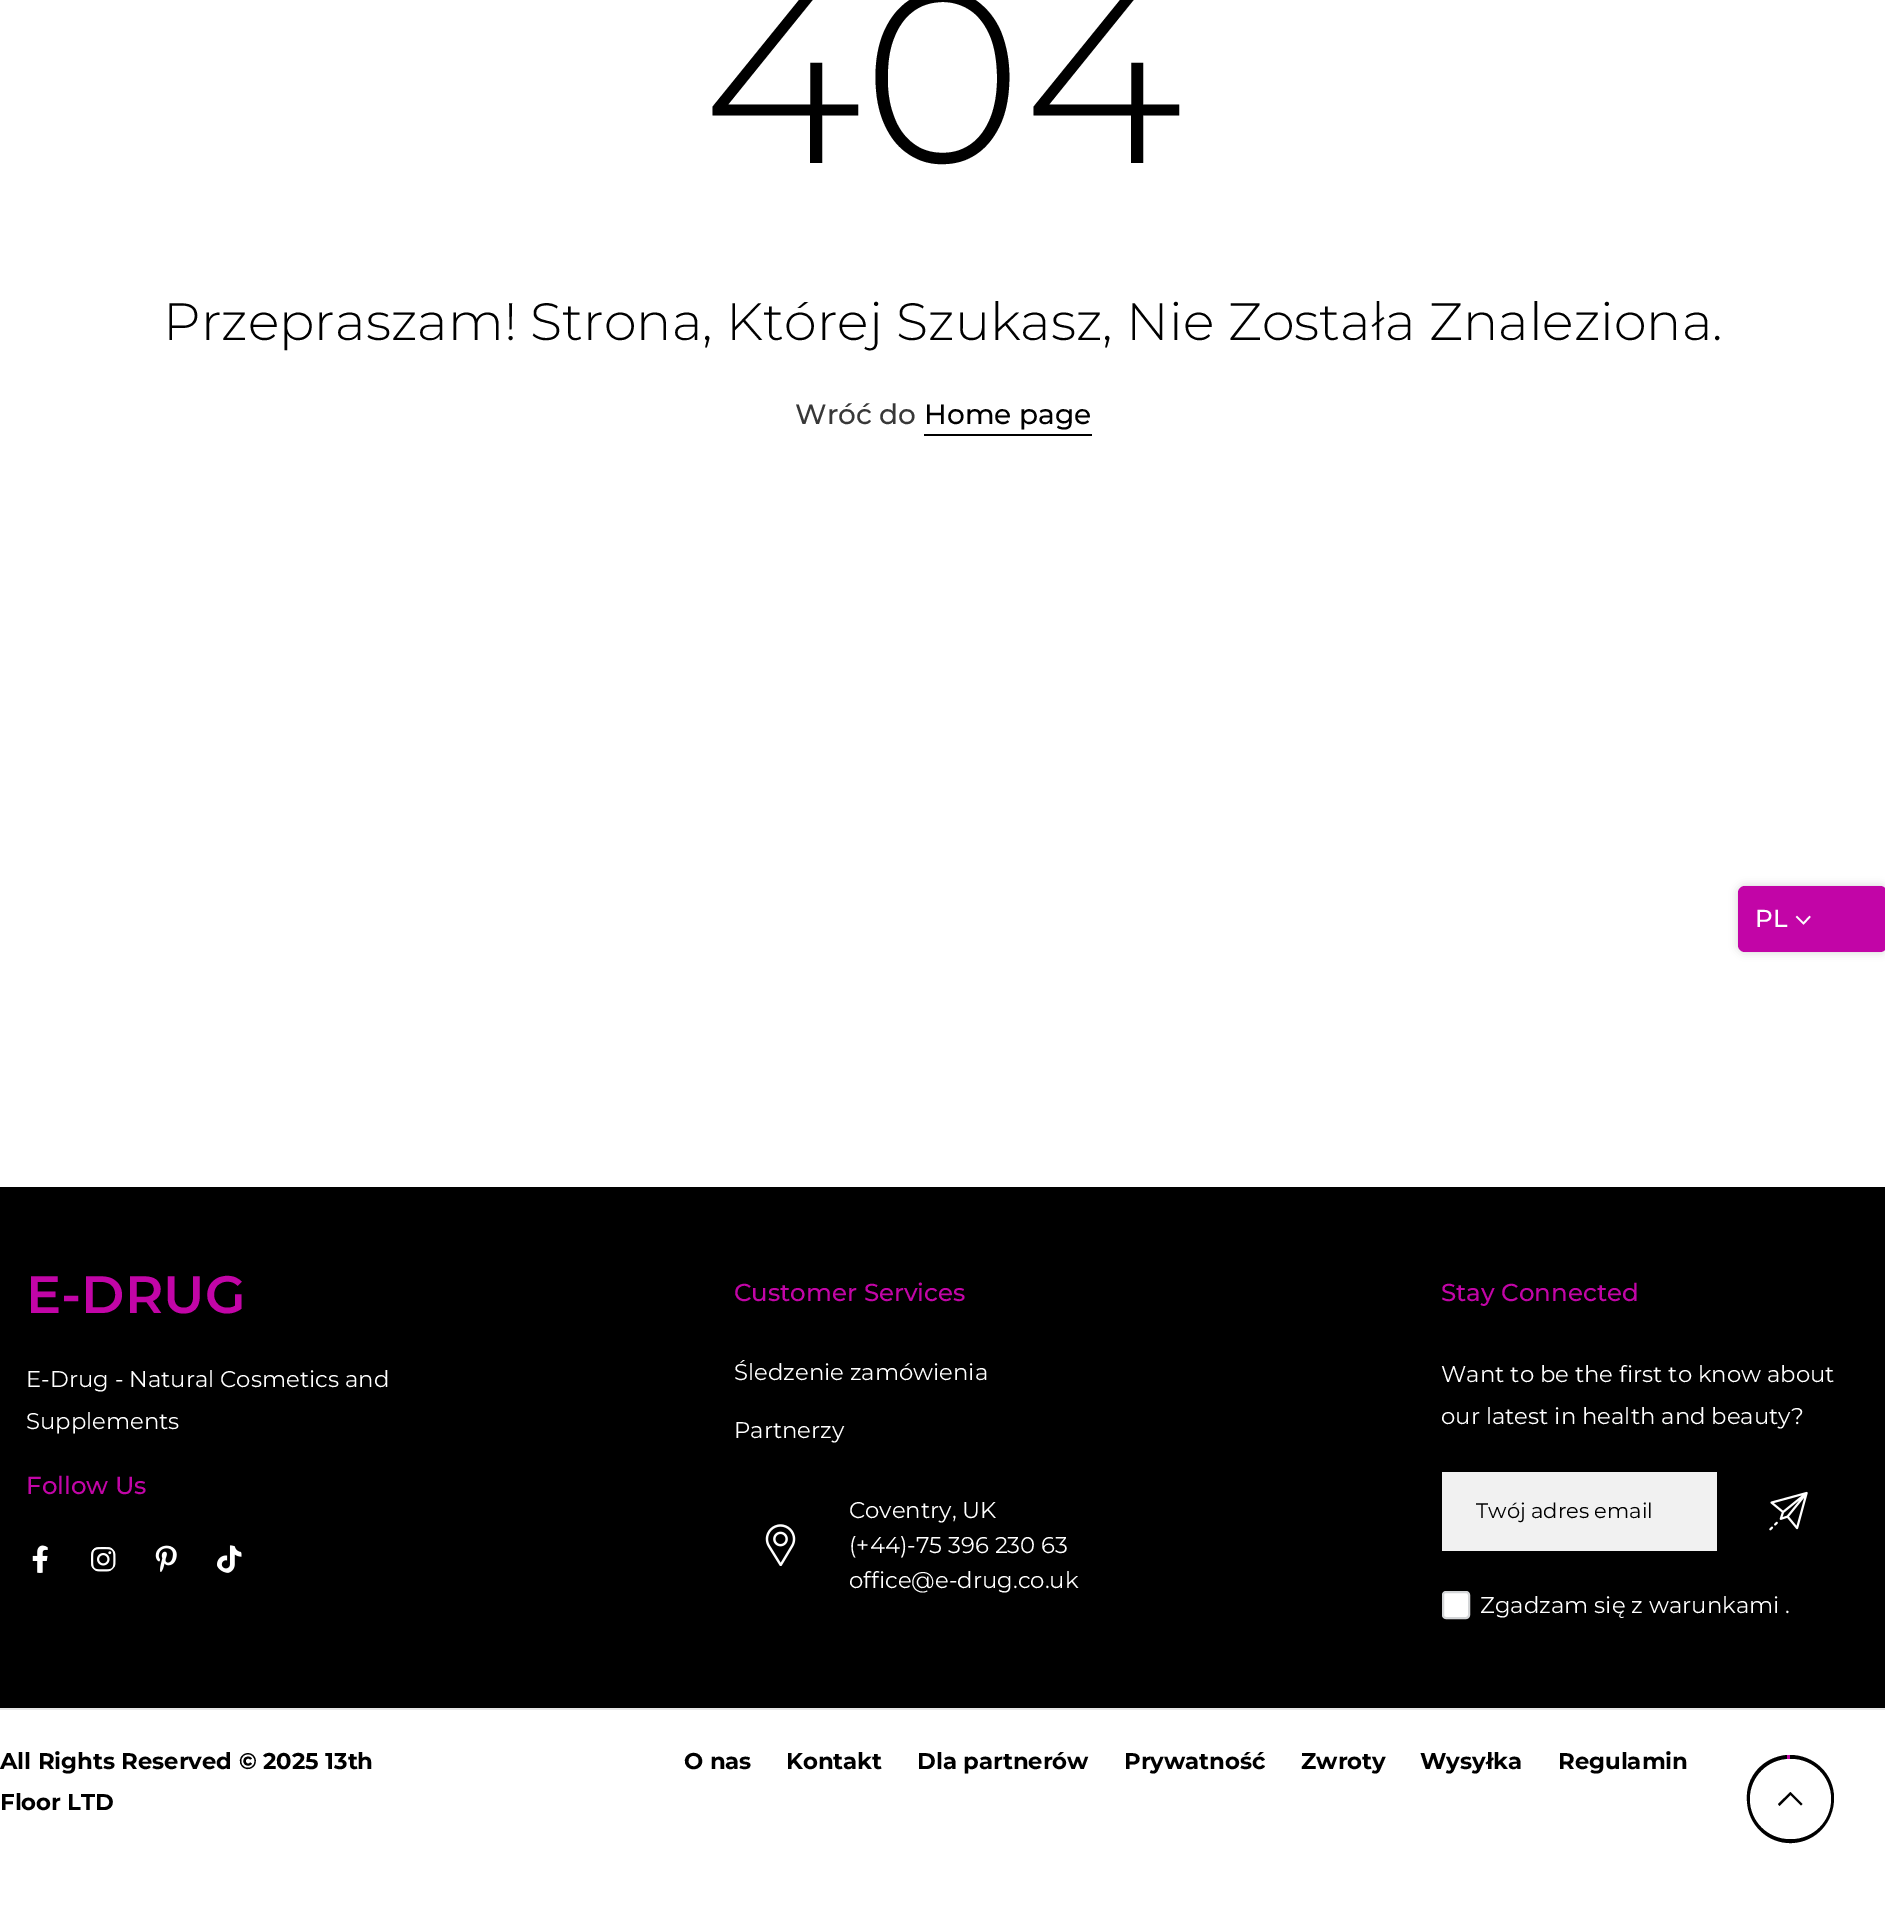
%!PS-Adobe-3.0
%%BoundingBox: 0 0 1885 1912
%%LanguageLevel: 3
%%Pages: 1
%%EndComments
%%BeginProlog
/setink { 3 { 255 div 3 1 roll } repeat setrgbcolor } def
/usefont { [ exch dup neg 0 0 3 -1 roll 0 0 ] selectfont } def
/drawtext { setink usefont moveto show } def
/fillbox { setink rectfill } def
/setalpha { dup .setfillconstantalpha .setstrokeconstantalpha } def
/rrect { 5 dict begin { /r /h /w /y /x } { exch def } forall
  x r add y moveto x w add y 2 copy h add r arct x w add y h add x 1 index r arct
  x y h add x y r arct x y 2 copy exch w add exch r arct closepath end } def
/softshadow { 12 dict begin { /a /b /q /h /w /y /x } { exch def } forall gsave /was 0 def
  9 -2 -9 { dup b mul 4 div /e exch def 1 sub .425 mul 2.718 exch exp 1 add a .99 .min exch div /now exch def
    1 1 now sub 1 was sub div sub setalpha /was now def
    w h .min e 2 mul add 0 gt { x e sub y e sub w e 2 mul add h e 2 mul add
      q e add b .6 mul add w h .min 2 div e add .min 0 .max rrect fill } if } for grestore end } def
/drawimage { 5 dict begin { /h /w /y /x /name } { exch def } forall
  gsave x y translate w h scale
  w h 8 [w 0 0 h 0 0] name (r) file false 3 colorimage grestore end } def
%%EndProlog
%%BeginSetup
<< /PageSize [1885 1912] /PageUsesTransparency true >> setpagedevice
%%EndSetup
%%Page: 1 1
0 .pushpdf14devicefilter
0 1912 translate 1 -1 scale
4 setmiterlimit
0 0 1885 1912 255 255 255 fillbox
(404) 702 163 /Montserrat-Light 245 0 0 0 drawtext
(Przepraszam! Strona, Której Szukasz, Nie Została Znaleziona.) 163 340 /Montserrat-Light 52.5 0 0 0 drawtext
(Wróć do) 795 424 /Montserrat-Medium 28 56 56 56 drawtext
(Home page) 924 424 /Montserrat-Medium 28 0 0 0 drawtext
924 434 168 2 0 0 0 fillbox
0 1187 1885 521 0 0 0 fillbox
(E-DRUG) 26 1313 /Montserrat-SemiBold 52.5 194 5 167 drawtext
(E-Drug - Natural Cosmetics and) 26 1387 /Montserrat-Regular 22.75 255 255 255 drawtext
(Supplements) 26 1429 /Montserrat-Regular 22.75 255 255 255 drawtext
(Follow Us) 26 1494 /Montserrat-Medium 24.5 194 5 167 drawtext
(assets/img1.rgb) 32 1545 16 28 drawimage
(assets/img2.rgb) 91 1547 25 25 drawimage
(assets/img3.rgb) 155 1545 22 27 drawimage
(assets/img4.rgb) 217 1545 25 28 drawimage
(Customer Services) 734 1301 /Montserrat-Medium 24.5 194 5 167 drawtext
(Śledzenie zamówienia) 734 1380 /Montserrat-Regular 22.75 255 255 255 drawtext
(Partnerzy) 734 1438 /Montserrat-Regular 22.75 255 255 255 drawtext
(assets/img5.rgb) 765 1524 31 42 drawimage
(Coventry, UK) 849 1518 /Montserrat-Regular 22.75 255 255 255 drawtext
(\(+44\)-75 396 230 63) 849 1553 /Montserrat-Regular 22.75 255 255 255 drawtext
(office@e-drug.co.uk) 849 1588 /Montserrat-Regular 22.75 255 255 255 drawtext
(Stay Connected) 1441 1301 /Montserrat-Medium 24.5 194 5 167 drawtext
(Want to be the first to know about) 1441 1382 /Montserrat-Regular 22.75 255 255 255 drawtext
(our latest in health and beauty?) 1441 1424 /Montserrat-Regular 22.75 255 255 255 drawtext
1442 1472 275 79 241 241 241 fillbox
(Twój adres email) 1476 1518 /Montserrat-Regular 21 0 0 0 drawtext
(assets/img6.rgb) 1769 1491 39 40 drawimage
255 255 255 setink
1443 1592 26 26 3 rrect gsave fill grestore
212 214 216 setink
2 setlinewidth
stroke
(Zgadzam się z warunkami) 1480 1613 /Montserrat-Regular 22.75 255 255 255 drawtext
(.) 1785 1613 /Montserrat-Regular 22.75 255 255 255 drawtext
0 1708 1885 2 230 230 230 fillbox
(All Rights Reserved © 2025 13th) 0 1769 /Montserrat-Bold 22.75 0 0 0 drawtext
(Floor LTD) 0 1810 /Montserrat-Bold 22.75 0 0 0 drawtext
(O nas) 684 1769 /Montserrat-Bold 22.75 0 0 0 drawtext
(Kontakt) 786 1769 /Montserrat-Bold 22.75 0 0 0 drawtext
(Dla partnerów) 917 1769 /Montserrat-Bold 22.75 0 0 0 drawtext
(Prywatność) 1124 1769 /Montserrat-Bold 22.75 0 0 0 drawtext
(Zwroty) 1301 1769 /Montserrat-Bold 22.75 0 0 0 drawtext
(Wysyłka) 1420 1769 /Montserrat-Bold 22.75 0 0 0 drawtext
(Regulamin) 1558 1769 /Montserrat-Bold 22.75 0 0 0 drawtext
1738 886 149 66 7 4.5 0.17 softshadow
194 5 167 setink
1738 886 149 66 7 rrect fill
(PL) 1755 927 /Montserrat-Medium 24.5 255 255 255 drawtext
1.7 setlinewidth
2 setlinecap
1809.5 917 moveto 1803.5 923.5 lineto 1797 917 lineto stroke
0 0 0 setink
1790 1799 moveto 1790 1755 lineto 1814 1755 1834 1774 1834 1798 curveto 1834 1822 1816 1842 1792 1843 curveto 1768 1844 1748 1825 1747 1801 curveto 1745 1777 1763 1757 1787 1755 curveto closepath fill
194 5 167 setink
1790 1799 moveto 1787 1755 lineto 1790 1755 lineto closepath fill
255 255 255 setink
1750 1759 81 80 40 rrect fill
0 0 0 setink
1792 1793.5 moveto 1790.5 1792 lineto 1778 1804 lineto 1779.5 1806 lineto 1790.5 1795 lineto 1801 1805.5 lineto 1802.5 1804 lineto 1796.5 1798 lineto closepath fill
.poppdf14devicefilter showpage
%%EOF
